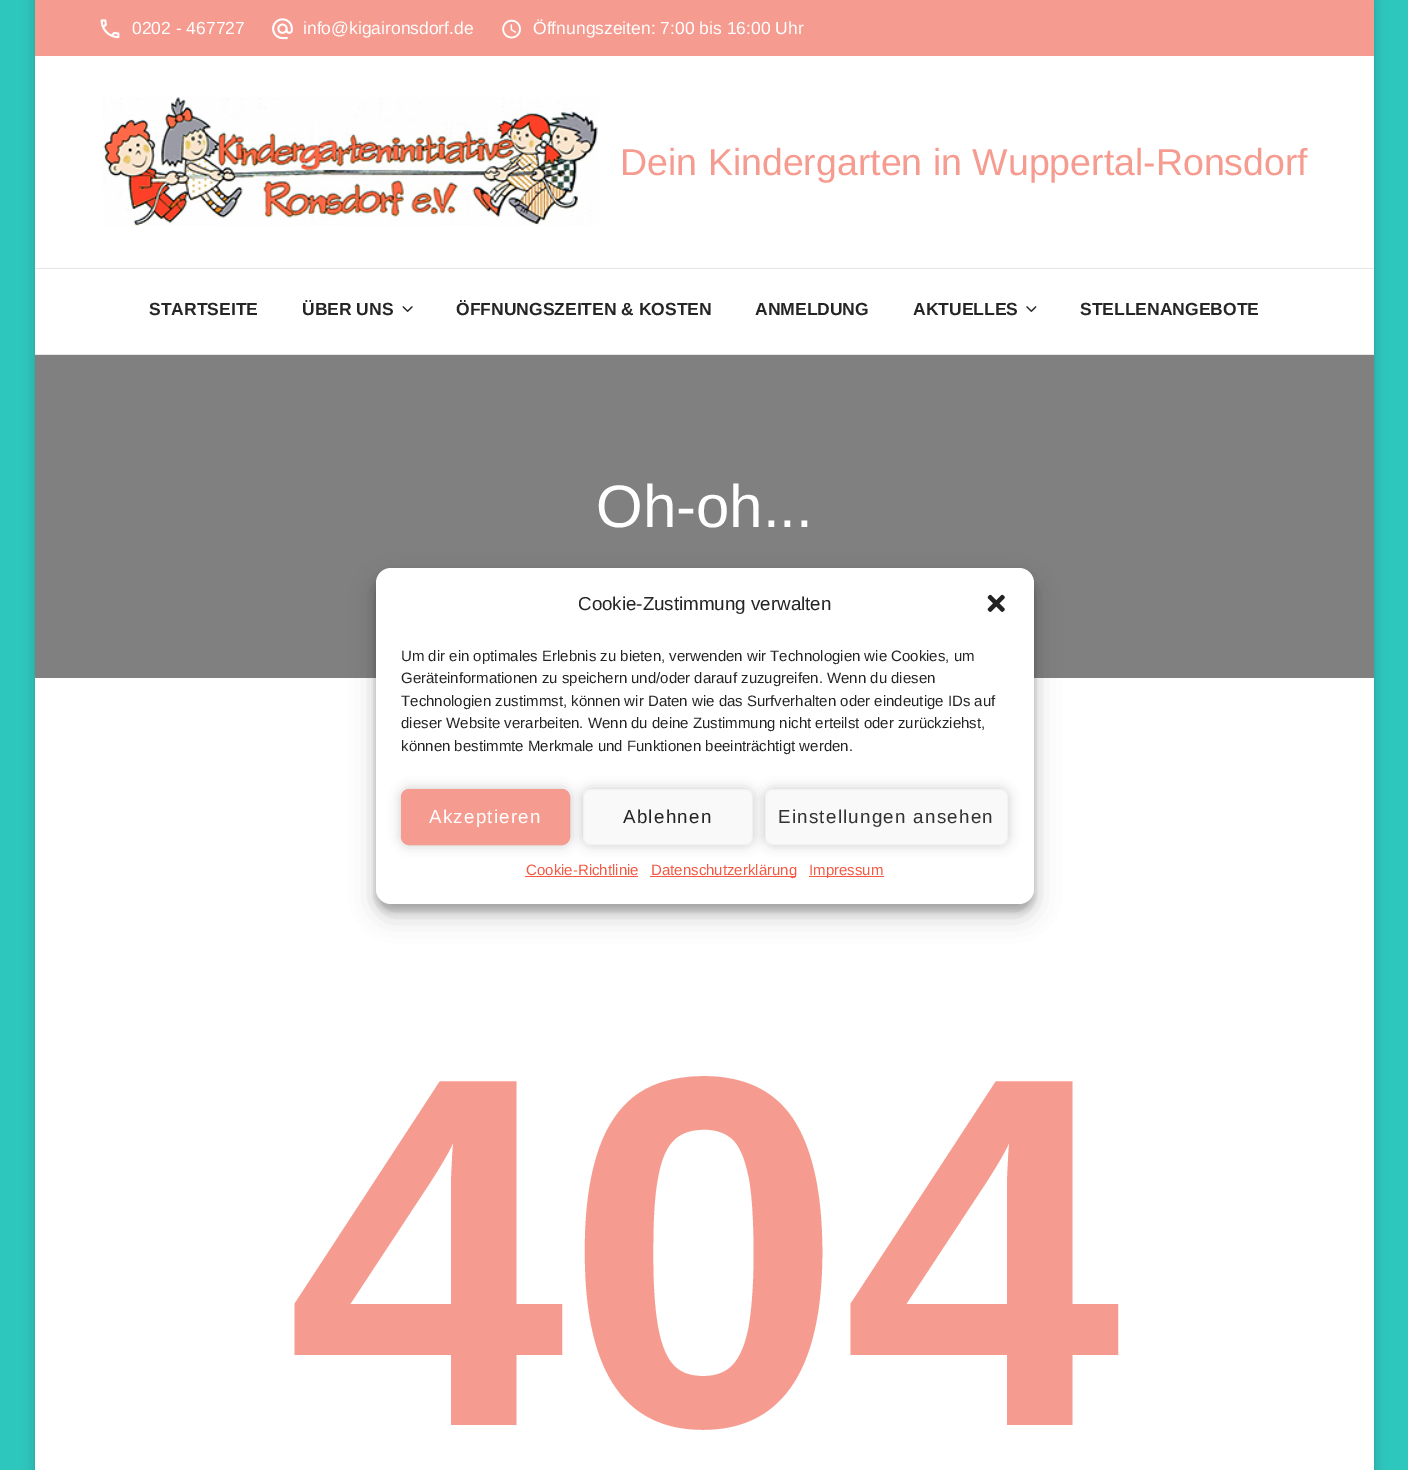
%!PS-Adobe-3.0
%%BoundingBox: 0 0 1408 1470
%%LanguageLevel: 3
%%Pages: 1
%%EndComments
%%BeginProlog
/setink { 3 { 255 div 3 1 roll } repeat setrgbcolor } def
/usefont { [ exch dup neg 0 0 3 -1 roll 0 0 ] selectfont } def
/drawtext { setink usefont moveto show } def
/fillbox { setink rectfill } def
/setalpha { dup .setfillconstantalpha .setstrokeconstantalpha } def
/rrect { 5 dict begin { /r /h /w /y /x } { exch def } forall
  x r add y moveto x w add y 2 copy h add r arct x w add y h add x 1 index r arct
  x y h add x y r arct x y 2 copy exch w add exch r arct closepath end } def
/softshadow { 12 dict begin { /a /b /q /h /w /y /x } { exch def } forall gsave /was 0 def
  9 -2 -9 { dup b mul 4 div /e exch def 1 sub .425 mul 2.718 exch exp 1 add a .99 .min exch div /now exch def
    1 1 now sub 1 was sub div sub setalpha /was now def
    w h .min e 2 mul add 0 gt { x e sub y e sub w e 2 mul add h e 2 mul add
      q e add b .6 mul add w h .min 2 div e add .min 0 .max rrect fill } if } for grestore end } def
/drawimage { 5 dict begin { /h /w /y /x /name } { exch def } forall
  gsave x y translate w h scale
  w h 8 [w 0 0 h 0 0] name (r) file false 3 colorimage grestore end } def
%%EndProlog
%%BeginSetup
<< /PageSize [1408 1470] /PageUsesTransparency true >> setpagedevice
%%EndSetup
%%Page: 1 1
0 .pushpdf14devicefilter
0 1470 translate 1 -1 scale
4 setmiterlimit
0 0 1408 1470 46 199 189 fillbox
0 0 0 setink
35 0 1339 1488 0 6 0.2 softshadow
35 56 1339 1414 255 255 255 fillbox
35 0 1339 56 245 155 144 fillbox
(assets/img1.rgb) 100 19 20 20 drawimage
(0202 - 467727) 132 34 /LiberationSans-Regular 17.5 255 255 255 drawtext
(assets/img2.rgb) 272 18 21 22 drawimage
(info@kigaironsdorf.de) 303 34 /LiberationSans-Regular 17.5 255 255 255 drawtext
(assets/img3.rgb) 502 19 19 20 drawimage
(Öffnungszeiten: 7:00 bis 16:00 Uhr) 533 34 /LiberationSans-Regular 17.5 255 255 255 drawtext
(assets/img4.rgb) 103 97 496 129 drawimage
(Dein Kindergarten in Wuppertal-Ronsdorf) 620 175 /LiberationSans-Regular 37.5 245 155 144 drawtext
35 268 1339 1 230 230 230 fillbox
35 354 1339 1 230 230 230 fillbox
(STARTSEITE) 149 315 /LiberationSans-Bold 17.5 38 37 37 drawtext
(ÜBER UNS) 302 315 /LiberationSans-Bold 17.5 38 37 37 drawtext
(assets/img5.rgb) 402 306 11 6 drawimage
(ÖFFNUNGSZEITEN & KOSTEN) 456 315 /LiberationSans-Bold 17.5 38 37 37 drawtext
(ANMELDUNG) 755 315 /LiberationSans-Bold 17.5 38 37 37 drawtext
(AKTUELLES) 913 315 /LiberationSans-Bold 17.5 38 37 37 drawtext
(assets/img6.rgb) 1026 306 11 6 drawimage
(STELLENANGEBOTE) 1080 315 /LiberationSans-Bold 17.5 38 37 37 drawtext
35 355 1339 323 128 128 128 fillbox
(Oh-oh...) 596 527 /LiberationSans-Regular 60 255 255 255 drawtext
(404) 287 1425 /LiberationSans-Bold 500 245 155 144 drawtext
0 0 0 setink
376 575 658 336 15 4 0.23 softshadow
376 580 658 336 15 12.5 0.19 softshadow
255 255 255 setink
376 568 658 336 15 rrect fill
(Cookie-Zustimmung verwalten) 578 610 /LiberationSans-Regular 18.75 38 37 37 drawtext
(assets/img7.rgb) 987 594 18 18 drawimage
(Um dir ein optimales Erlebnis zu bieten, verwenden wir Technologien wie Cookies, um) 401 661 /LiberationSans-Regular 15 38 37 37 drawtext
(Geräteinformationen zu speichern und/oder darauf zuzugreifen. Wenn du diesen) 401 683 /LiberationSans-Regular 15 38 37 37 drawtext
(Technologien zustimmst, können wir Daten wie das Surfverhalten oder eindeutige IDs auf) 401 706 /LiberationSans-Regular 15 38 37 37 drawtext
(dieser Website verarbeiten. Wenn du deine Zustimmung nicht erteilst oder zurückziehst,) 401 728 /LiberationSans-Regular 15 38 37 37 drawtext
(können bestimmte Merkmale und Funktionen beeinträchtigt werden.) 401 751 /LiberationSans-Regular 15 38 37 37 drawtext
0 0 0 setink
401 789 169 56 8 6 0.2 softshadow
245 155 144 setink
401.5 789.5 168 55 7.5 rrect gsave fill grestore
stroke
/LiberationSans-Regular 18.75 usefont
255 255 255 setink
429 823 moveto 1.25 0 (Akzeptieren) ashow
0 0 0 setink
583 789 170 56 8 6 0.2 softshadow
249 249 249 setink
583.5 789.5 169 55 7.5 rrect gsave fill grestore
242 242 242 setink
stroke
38 37 37 setink
623 823 moveto 1.25 0 (Ablehnen) ashow
0 0 0 setink
765 789 243 56 8 6 0.2 softshadow
249 249 249 setink
765.5 789.5 242 55 7.5 rrect gsave fill grestore
242 242 242 setink
stroke
51 51 51 setink
778 823 moveto 1.25 0 (Einstellungen ansehen) ashow
(Cookie-Richtlinie) 526 875 /LiberationSans-Regular 15 244 89 68 drawtext
525 876 113 1 244 89 68 fillbox
650 876 146 1 244 89 68 fillbox
(Datenschutzerklärung) 651 875 /LiberationSans-Regular 15 244 89 68 drawtext
809 876 75 1 244 89 68 fillbox
(Impressum) 809 875 /LiberationSans-Regular 15 244 89 68 drawtext
.poppdf14devicefilter showpage
%%EOF
